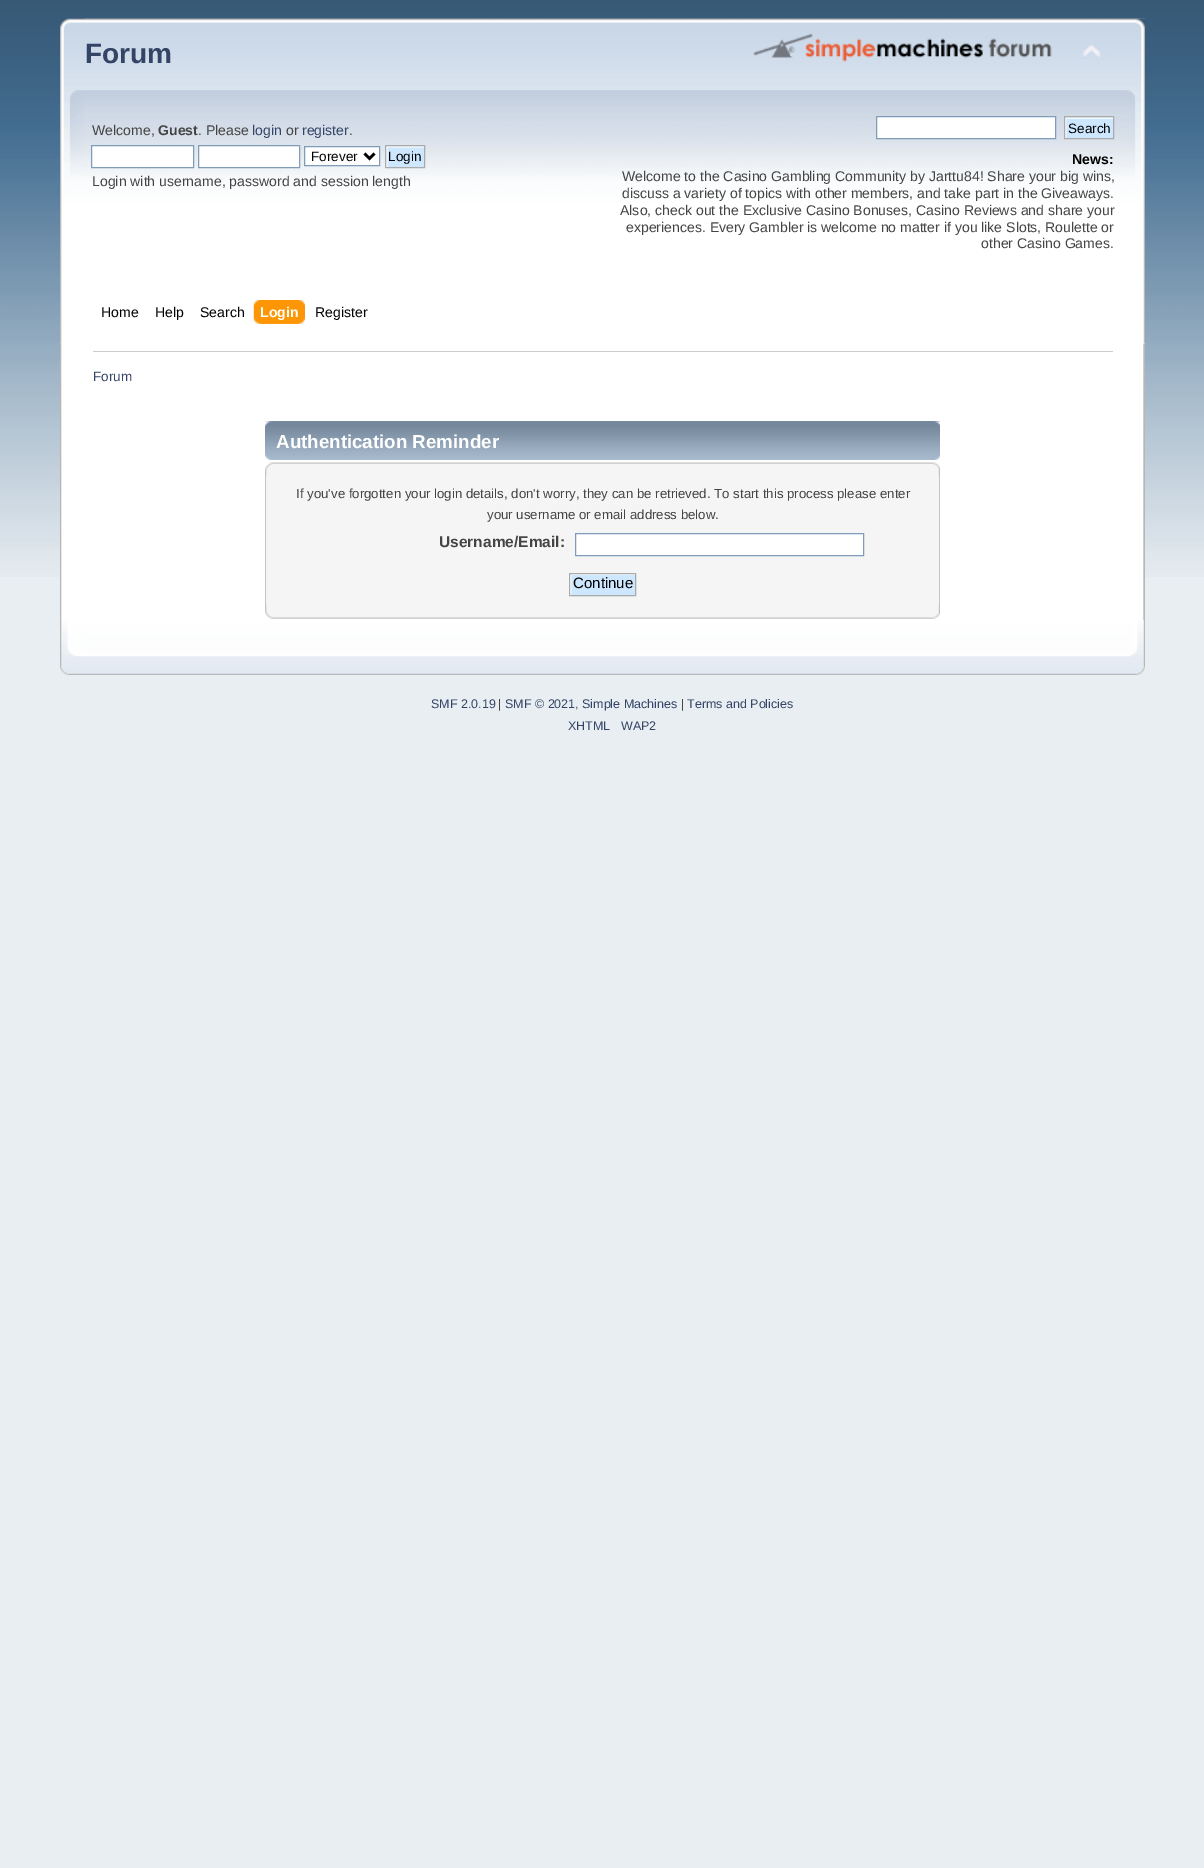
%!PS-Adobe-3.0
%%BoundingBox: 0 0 1204 1868
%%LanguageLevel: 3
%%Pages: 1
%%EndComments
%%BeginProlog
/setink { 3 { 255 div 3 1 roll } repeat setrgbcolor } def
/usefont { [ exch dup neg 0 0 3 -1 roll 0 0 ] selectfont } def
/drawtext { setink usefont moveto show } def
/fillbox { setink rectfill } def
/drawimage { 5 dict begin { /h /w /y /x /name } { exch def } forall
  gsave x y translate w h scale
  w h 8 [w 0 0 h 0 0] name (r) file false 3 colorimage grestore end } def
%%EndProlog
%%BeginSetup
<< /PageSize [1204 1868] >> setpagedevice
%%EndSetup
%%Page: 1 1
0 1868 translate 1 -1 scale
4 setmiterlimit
0 0 1204 1868 233 238 242 fillbox
(assets/img1.rgb) 0 0 1204 577 drawimage
(assets/img2.rgb) 60 18 1085 326 drawimage
(assets/img3.rgb) 85 18 1060 326 drawimage
(Forum) 85 63 /LiberationSans-Bold 28 51 68 102 drawtext
(assets/img4.rgb) 753 33 299 29 drawimage
(assets/img5.rgb) 1082 44 19 15 drawimage
(Welcome,) 92 135 /LiberationSans-Regular 14.05 68 68 68 drawtext
(Guest) 158 135 /LiberationSans-Bold 14.05 68 68 68 drawtext
(. Please) 198 135 /LiberationSans-Regular 14.05 68 68 68 drawtext
(login) 252 135 /LiberationSans-Regular 14.05 51 68 102 drawtext
(or) 286 135 /LiberationSans-Regular 14.05 68 68 68 drawtext
(register) 302 135 /LiberationSans-Regular 14.05 51 68 102 drawtext
(.) 349 135 /LiberationSans-Regular 14.05 68 68 68 drawtext
255 255 255 setink
91.5 145.5 moveto 193.5 145.5 lineto 193.5 167.5 lineto 91.5 167.5 lineto closepath gsave fill grestore
127 157 185 setink
stroke
255 255 255 setink
198.5 145.5 moveto 299.5 145.5 lineto 299.5 167.5 lineto 198.5 167.5 lineto closepath gsave fill grestore
127 157 185 setink
stroke
255 255 255 setink
304.5 146.5 moveto 379.5 146.5 lineto 379.5 165.5 lineto 304.5 165.5 lineto closepath gsave fill grestore
127 157 185 setink
stroke
0 0 0 setink
2.5 setlinewidth
364.5 153.5 moveto 369.5 158.5 lineto 374.5 153.5 lineto stroke
(Forever) 311 161 /LiberationSans-Regular 13.5 0 0 0 drawtext
386 146 38 21 205 231 255 fillbox
(assets/img6.rgb) 386 146 38 21 drawimage
170 170 170 setink
1 setlinewidth
385.5 145.5 39 22 rectstroke
(Login) 388 161 /LiberationSans-Regular 13.5 0 0 0 drawtext
(Login with username, password and session length) 92 186 /LiberationSans-Regular 14.05 68 68 68 drawtext
255 255 255 setink
876.5 116.5 moveto 1055.5 116.5 lineto 1055.5 138.5 lineto 876.5 138.5 lineto closepath gsave fill grestore
127 157 185 setink
stroke
1065 117 48 1 205 231 255 fillbox
(assets/img7.rgb) 1065 117 48 21 drawimage
170 170 170 setink
1064.5 116.5 49 22 rectstroke
(Search) 1068 133 /LiberationSans-Regular 13.5 0 0 0 drawtext
(News:) 1072 164 /LiberationSans-Bold 14.05 0 0 0 drawtext
(Welcome to the Casino Gambling Community by Jarttu84! Share your big wins,) 622 181 /LiberationSans-Regular 14.05 68 68 68 drawtext
(discuss a variety of topics with other members, and take part in the Giveaways.) 622 198 /LiberationSans-Regular 14.05 68 68 68 drawtext
(Also, check out the Exclusive Casino Bonuses, Casino Reviews and share your) 620 215 /LiberationSans-Regular 14.05 68 68 68 drawtext
(experiences. Every Gambler is welcome no matter if you like Slots, Roulette or) 626 232 /LiberationSans-Regular 14.05 68 68 68 drawtext
(other Casino Games.) 981 248 /LiberationSans-Regular 14.05 68 68 68 drawtext
(Home) 101 317 /LiberationSans-Regular 14.05 0 0 0 drawtext
(Help) 155 317 /LiberationSans-Regular 14.05 0 0 0 drawtext
(Search) 200 317 /LiberationSans-Regular 14.05 0 0 0 drawtext
(assets/img8.rgb) 260 300 45 24 drawimage
(assets/img9.rgb) 253 300 46 24 drawimage
(Login) 260 317 /LiberationSans-Bold 14.05 255 255 255 drawtext
(Register) 315 317 /LiberationSans-Regular 14.05 0 0 0 drawtext
(assets/img10.rgb) 60 343 1085 277 drawimage
(assets/img11.rgb) 1143 343 2 277 drawimage
93 351 1020 1 204 204 204 fillbox
(Forum) 93 381 /LiberationSans-Regular 13.5 51 68 102 drawtext
(assets/img12.rgb) 265 421 675 39 drawimage
(assets/img13.rgb) 276 421 664 39 drawimage
(Authentication Reminder) 276 448 /LiberationSans-Bold 18.75 255 255 255 drawtext
(assets/img14.rgb) 265 462 668 14 drawimage
(assets/img15.rgb) 933 462 7 14 drawimage
266 476 673 129 245 245 245 fillbox
939 476 1 129 197 197 197 fillbox
265 476 1 129 197 197 197 fillbox
(If you've forgotten your login details, don't worry, they can be retrieved. To start this process please enter) 296 498 /LiberationSans-Regular 13.25 68 68 68 drawtext
(your username or email address below.) 487 519 /LiberationSans-Regular 13.25 68 68 68 drawtext
(Username/Email:) 439 547 /LiberationSans-Bold 15.5 68 68 68 drawtext
255 255 255 setink
575.5 533.5 moveto 863.5 533.5 lineto 863.5 555.5 lineto 575.5 555.5 lineto closepath gsave fill grestore
127 157 185 setink
stroke
(assets/img16.rgb) 570 573 67 24 drawimage
170 170 170 setink
569.5 573.5 66 22 rectstroke
(Continue) 573 588 /LiberationSans-Regular 15 0 0 0 drawtext
(assets/img17.rgb) 265 605 668 14 drawimage
(assets/img18.rgb) 933 605 7 14 drawimage
(assets/img19.rgb) 60 620 1070 55 drawimage
(assets/img20.rgb) 1130 620 15 55 drawimage
(SMF 2.0.19) 431 708 /LiberationSans-Regular 12.5 51 68 102 drawtext
(|) 498 708 /LiberationSans-Regular 12.5 68 68 68 drawtext
(SMF © 2021) 505 708 /LiberationSans-Regular 12.5 51 68 102 drawtext
(,) 575 708 /LiberationSans-Regular 12.5 68 68 68 drawtext
(Simple Machines) 582 708 /LiberationSans-Regular 12.5 51 68 102 drawtext
(|) 681 708 /LiberationSans-Regular 12.5 68 68 68 drawtext
(Terms and Policies) 687 708 /LiberationSans-Regular 12.5 51 68 102 drawtext
(XHTML) 568 730 /LiberationSans-Regular 12.5 51 68 102 drawtext
(WAP2) 621 730 /LiberationSans-Regular 12.5 51 68 102 drawtext
showpage
%%EOF
